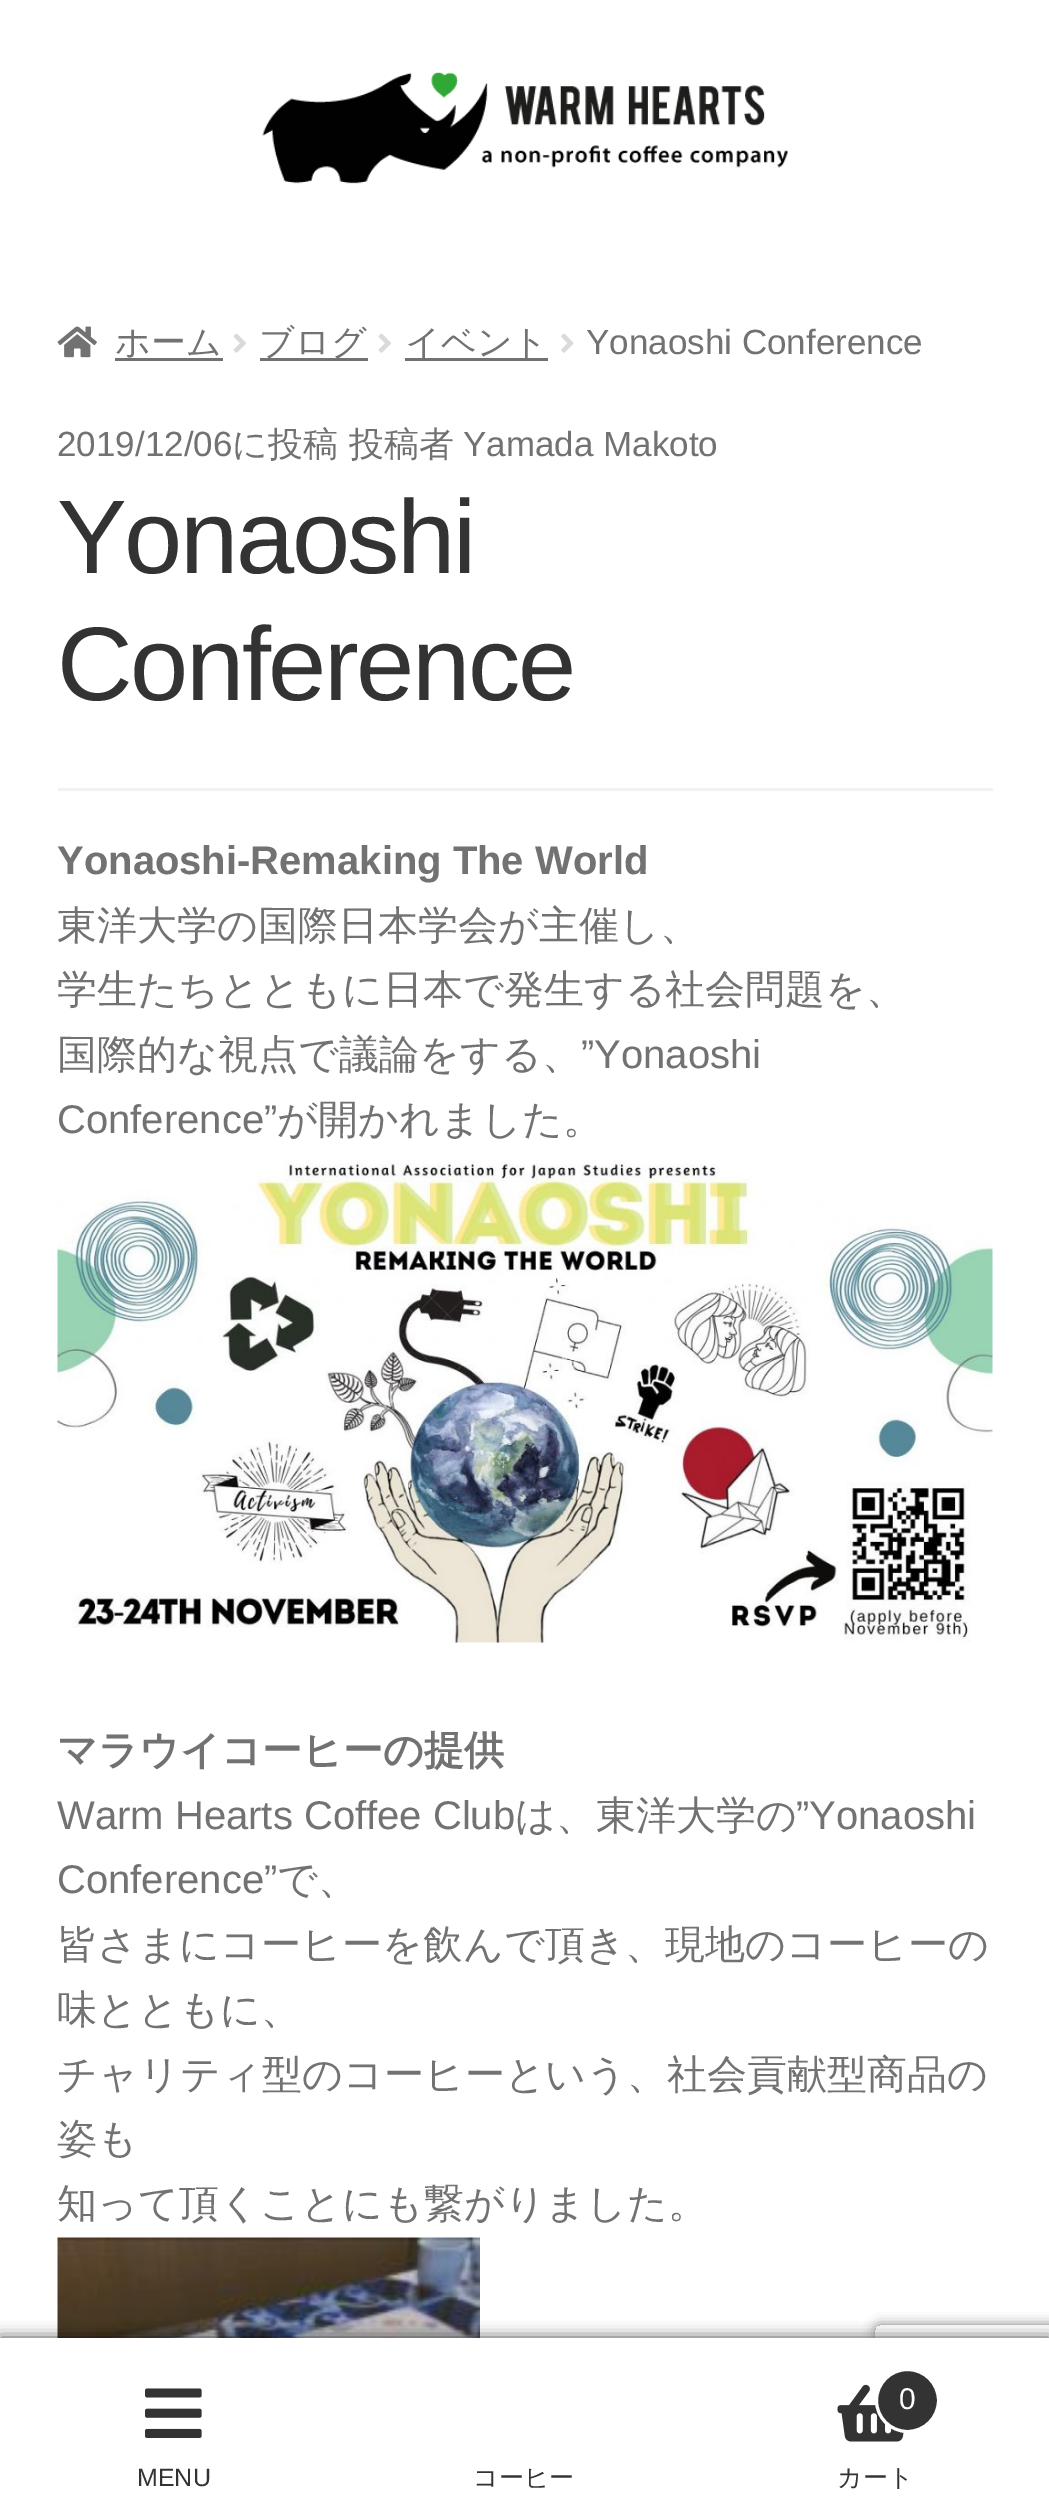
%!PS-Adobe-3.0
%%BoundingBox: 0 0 1049 2510
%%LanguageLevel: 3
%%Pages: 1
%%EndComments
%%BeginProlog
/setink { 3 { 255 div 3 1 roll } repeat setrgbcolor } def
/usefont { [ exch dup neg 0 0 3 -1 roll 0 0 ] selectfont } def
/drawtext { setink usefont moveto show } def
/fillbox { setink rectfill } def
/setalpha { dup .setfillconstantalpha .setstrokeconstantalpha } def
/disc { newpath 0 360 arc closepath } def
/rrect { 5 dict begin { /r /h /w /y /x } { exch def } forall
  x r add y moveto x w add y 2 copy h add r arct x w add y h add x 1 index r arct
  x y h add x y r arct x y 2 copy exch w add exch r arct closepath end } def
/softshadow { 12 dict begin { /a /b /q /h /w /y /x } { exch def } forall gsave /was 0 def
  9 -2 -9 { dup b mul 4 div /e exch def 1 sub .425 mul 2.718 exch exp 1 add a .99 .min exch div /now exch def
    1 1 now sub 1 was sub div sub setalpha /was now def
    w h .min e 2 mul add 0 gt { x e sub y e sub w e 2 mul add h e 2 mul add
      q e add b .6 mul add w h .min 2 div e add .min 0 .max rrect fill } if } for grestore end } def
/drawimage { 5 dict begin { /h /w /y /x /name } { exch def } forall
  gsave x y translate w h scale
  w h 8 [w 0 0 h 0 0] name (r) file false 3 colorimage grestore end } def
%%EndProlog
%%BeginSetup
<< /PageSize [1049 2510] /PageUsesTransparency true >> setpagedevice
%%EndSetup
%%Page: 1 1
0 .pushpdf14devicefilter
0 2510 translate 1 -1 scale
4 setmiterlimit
0 0 1049 2510 255 255 255 fillbox
(assets/img1.rgb) 262 72 526 112 drawimage
(assets/img2.rgb) 57 326 40 32 drawimage
(ホーム) 115 354 /WenQuanYiZenHei-Medium 35 114 114 114 drawtext
115 358 108 3 114 114 114 fillbox
(assets/img3.rgb) 233 333 13 20 drawimage
260 358 108 3 114 114 114 fillbox
(ブログ) 259 354 /WenQuanYiZenHei-Medium 35 114 114 114 drawtext
(assets/img3.rgb) 378 333 13 20 drawimage
405 358 143 3 114 114 114 fillbox
(イベント) 405 354 /WenQuanYiZenHei-Medium 35 114 114 114 drawtext
(assets/img4.rgb) 561 333 13 20 drawimage
(Yonaoshi Conference) 586 354 /LiberationSans-Regular 35 114 114 114 drawtext
58 788 935 3 242 242 242 fillbox
(2019/12/06) 57 456 /LiberationSans-Regular 35 114 114 114 drawtext
(に投稿) 232 456 /WenQuanYiZenHei-Medium 35 114 114 114 drawtext
(投稿者) 349 456 /WenQuanYiZenHei-Medium 35 114 114 114 drawtext
(Yamada Makoto) 463 456 /LiberationSans-Regular 35 114 114 114 drawtext
/LiberationSans-Regular 104.75 usefont
51 51 51 setink
57 573 moveto -2.5 0 (Yonaoshi) ashow
57 700 moveto -2.5 0 (Conference) ashow
(Yonaoshi-Remaking The World) 57 874 /LiberationSans-Bold 40 114 114 114 drawtext
(東洋大学の国際日本学会が主催し、) 57 939 /WenQuanYiZenHei-Medium 40 114 114 114 drawtext
(学生たちとともに日本で発生する社会問題を、) 57 1003 /WenQuanYiZenHei-Medium 40 114 114 114 drawtext
(国際的な視点で議論をする、) 57 1068 /WenQuanYiZenHei-Medium 40 114 114 114 drawtext
(”Yonaoshi) 581 1068 /LiberationSans-Regular 40 114 114 114 drawtext
(Conference”) 57 1133 /LiberationSans-Regular 40 114 114 114 drawtext
(が開かれました。) 277 1133 /WenQuanYiZenHei-Medium 40 114 114 114 drawtext
(assets/img5.rgb) 57 1160 936 483 drawimage
(マラウイコーヒーの提供) 57 1764 /WenQuanYiZenHei-Bold 40 114 114 114 drawtext
(Warm Hearts Coffee Club) 57 1829 /LiberationSans-Regular 40 114 114 114 drawtext
(は、東洋大学の) 515 1829 /WenQuanYiZenHei-Medium 40 114 114 114 drawtext
(”Yonaoshi) 796 1829 /LiberationSans-Regular 40 114 114 114 drawtext
(Conference”) 57 1893 /LiberationSans-Regular 40 114 114 114 drawtext
(で、) 277 1893 /WenQuanYiZenHei-Medium 40 114 114 114 drawtext
(皆さまにコーヒーを飲んで頂き、現地のコーヒーの) 57 1958 /WenQuanYiZenHei-Medium 40 114 114 114 drawtext
(味とともに、) 57 2023 /WenQuanYiZenHei-Medium 40 114 114 114 drawtext
(チャリティ型のコーヒーという、社会貢献型商品の) 57 2088 /WenQuanYiZenHei-Medium 40 114 114 114 drawtext
(姿も) 57 2152 /WenQuanYiZenHei-Medium 40 114 114 114 drawtext
(知って頂くことにも繋がりました。) 57 2217 /WenQuanYiZenHei-Medium 40 114 114 114 drawtext
(assets/img6.rgb) 57 2237 423 101 drawimage
0 0 0 setink
0 2338 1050 172 0 7.5 0.7 softshadow
gsave
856 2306 moveto 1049 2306 lineto 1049 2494 lineto 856 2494 lineto closepath 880 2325 moveto 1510 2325 lineto 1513 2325 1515 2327 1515 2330 curveto 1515 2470 lineto 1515 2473 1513 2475 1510 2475 curveto 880 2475 lineto 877 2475 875 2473 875 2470 curveto 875 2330 lineto 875 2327 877 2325 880 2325 curveto closepath eoclip newpath
128 128 128 setink
875 2325 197 150 5 6 1 softshadow
grestore
0 2338 1049 172 255 255 255 fillbox
(assets/img7.rgb) 145 2388 57 50 drawimage
(MENU) 137 2486 /LiberationSans-Regular 25 51 51 51 drawtext
(コーヒー) 473 2486 /WenQuanYiZenHei-Medium 25 51 51 51 drawtext
(assets/img8.rgb) 837 2384 67 58 drawimage
907.5 2400.5 31 disc gsave fill grestore
255 255 255 setink
3 setlinewidth
stroke
(0) 899 2409 /LiberationSans-Regular 30 255 255 255 drawtext
(カート) 837 2486 /WenQuanYiZenHei-Medium 25 51 51 51 drawtext
.poppdf14devicefilter showpage
%%EOF
